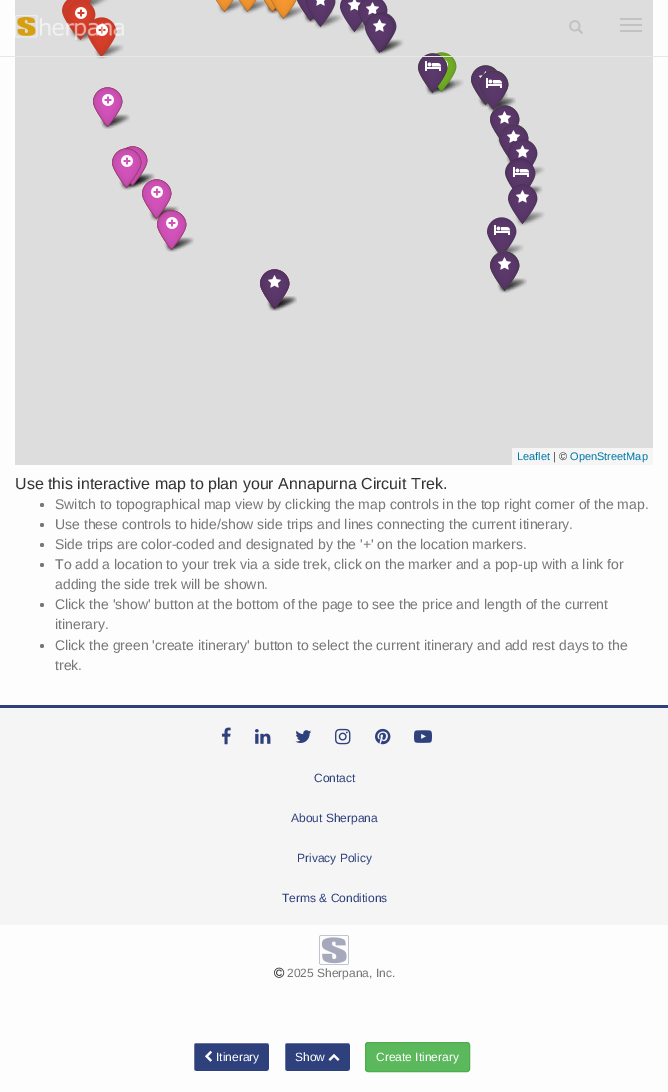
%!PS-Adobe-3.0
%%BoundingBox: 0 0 668 1092
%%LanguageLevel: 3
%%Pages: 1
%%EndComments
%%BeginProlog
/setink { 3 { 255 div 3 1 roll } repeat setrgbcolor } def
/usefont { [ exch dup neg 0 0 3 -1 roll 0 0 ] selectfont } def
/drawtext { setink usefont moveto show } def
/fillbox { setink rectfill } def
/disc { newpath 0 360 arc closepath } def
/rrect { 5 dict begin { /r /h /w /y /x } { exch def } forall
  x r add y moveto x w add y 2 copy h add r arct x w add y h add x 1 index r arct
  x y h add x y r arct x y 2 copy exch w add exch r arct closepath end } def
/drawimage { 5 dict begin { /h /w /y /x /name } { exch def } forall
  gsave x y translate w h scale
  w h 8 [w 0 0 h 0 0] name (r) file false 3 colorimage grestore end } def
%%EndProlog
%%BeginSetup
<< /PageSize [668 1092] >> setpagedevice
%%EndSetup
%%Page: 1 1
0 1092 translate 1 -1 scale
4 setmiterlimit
0 0 668 1092 253 253 253 fillbox
15 0 638 465 221 221 221 fillbox
(assets/img58.rgb) 89 0 19 8 drawimage
(assets/img6.rgb) 86 0 6 4 drawimage
(assets/img66.rgb) 69 27 19 11 drawimage
(assets/img70.rgb) 73 30 17 12 drawimage
(assets/img3.rgb) 62 0 28 37 drawimage
(assets/img4.rgb) 66 0 30 41 drawimage
(assets/img72.rgb) 94 44 30 15 drawimage
(assets/img21.rgb) 87 17 30 41 drawimage
(assets/img73.rgb) 435 79 29 15 drawimage
(assets/img74.rgb) 425 80 30 15 drawimage
(assets/img75.rgb) 425 80 30 15 drawimage
(assets/img23.rgb) 435 52 22 41 drawimage
(assets/img24.rgb) 444 59 4 10 drawimage
(assets/img25.rgb) 418 53 30 41 drawimage
(assets/img26.rgb) 418 53 30 41 drawimage
0 56 668 1 231 231 231 fillbox
(assets/img5.rgb) 75 7 12 12 drawimage
(assets/img5.rgb) 96 24 12 12 drawimage
(assets/img1.rgb) 15 15 109 25 drawimage
(assets/img2.rgb) 569 20 14 14 drawimage
194 194 194 setink
620 18 22 2 1 rrect fill
620 24 22 2 1 rrect fill
620 30 22 2 1 rrect fill
(assets/img64.rgb) 303 10 30 13 drawimage
(assets/img63.rgb) 276 6 29 15 drawimage
(assets/img61.rgb) 265 3 30 11 drawimage
(assets/img60.rgb) 240 0 28 14 drawimage
(assets/img59.rgb) 217 0 27 14 drawimage
(assets/img7.rgb) 215 0 19 13 drawimage
(assets/img8.rgb) 238 0 19 13 drawimage
(assets/img62.rgb) 265 3 30 11 drawimage
(assets/img9.rgb) 263 0 13 13 drawimage
(assets/img10.rgb) 263 0 13 13 drawimage
(assets/img11.rgb) 270 0 27 20 drawimage
(assets/img67.rgb) 313 14 30 15 drawimage
(assets/img65.rgb) 303 10 30 13 drawimage
(assets/img12.rgb) 297 0 17 22 drawimage
(assets/img13.rgb) 297 0 17 22 drawimage
(assets/img14.rgb) 306 0 30 28 drawimage
(assets/img15.rgb) 316 0 9 6 drawimage
(assets/img69.rgb) 365 28 4 9 drawimage
(assets/img68.rgb) 347 21 19 13 drawimage
(assets/img16.rgb) 340 0 23 33 drawimage
(assets/img17.rgb) 348 0 13 11 drawimage
(assets/img18.rgb) 358 0 30 28 drawimage
(assets/img19.rgb) 366 2 13 13 drawimage
(assets/img72.rgb) 372 40 30 15 drawimage
(assets/img71.rgb) 374 39 30 15 drawimage
(assets/img20.rgb) 368 12 29 41 drawimage
(assets/img22.rgb) 365 13 30 41 drawimage
(assets/img19.rgb) 373 19 13 13 drawimage
(assets/img27.rgb) 425 61 16 10 drawimage
(assets/img72.rgb) 486 97 30 15 drawimage
(assets/img76.rgb) 478 92 30 15 drawimage
(assets/img78.rgb) 486 97 30 15 drawimage
(assets/img77.rgb) 478 92 30 15 drawimage
(assets/img28.rgb) 471 65 26 41 drawimage
(assets/img29.rgb) 471 65 26 41 drawimage
(assets/img30.rgb) 479 71 8 7 drawimage
(assets/img31.rgb) 479 70 30 41 drawimage
(assets/img72.rgb) 100 114 30 15 drawimage
(assets/img79.rgb) 100 114 30 15 drawimage
(assets/img32.rgb) 93 87 30 41 drawimage
(assets/img33.rgb) 479 70 30 41 drawimage
(assets/img27.rgb) 486 78 16 10 drawimage
(assets/img34.rgb) 93 87 30 41 drawimage
(assets/img35.rgb) 102 94 12 12 drawimage
(assets/img80.rgb) 497 136 5 11 drawimage
(assets/img81.rgb) 497 136 5 11 drawimage
(assets/img36.rgb) 490 105 30 35 drawimage
(assets/img37.rgb) 490 105 30 35 drawimage
(assets/img19.rgb) 498 111 13 13 drawimage
(assets/img82.rgb) 506 155 5 9 drawimage
(assets/img83.rgb) 506 155 5 9 drawimage
(assets/img38.rgb) 499 124 30 37 drawimage
(assets/img39.rgb) 499 124 30 37 drawimage
(assets/img19.rgb) 507 130 13 13 drawimage
(assets/img85.rgb) 128 173 27 15 drawimage
(assets/img87.rgb) 119 175 30 15 drawimage
(assets/img86.rgb) 128 173 27 15 drawimage
(assets/img88.rgb) 119 175 30 15 drawimage
(assets/img40.rgb) 124 146 24 40 drawimage
(assets/img41.rgb) 508 139 30 27 drawimage
(assets/img19.rgb) 516 145 13 13 drawimage
(assets/img42.rgb) 124 146 24 40 drawimage
(assets/img43.rgb) 112 148 30 41 drawimage
(assets/img44.rgb) 112 148 30 41 drawimage
(assets/img35.rgb) 121 155 12 12 drawimage
(assets/img84.rgb) 533 166 12 11 drawimage
(assets/img90.rgb) 529 186 14 9 drawimage
(assets/img89.rgb) 529 185 13 9 drawimage
(assets/img45.rgb) 505 158 30 31 drawimage
(assets/img46.rgb) 506 159 30 30 drawimage
(assets/img27.rgb) 513 167 16 10 drawimage
(assets/img72.rgb) 149 206 30 15 drawimage
(assets/img79.rgb) 149 206 30 15 drawimage
(assets/img47.rgb) 142 179 30 41 drawimage
(assets/img48.rgb) 142 179 30 41 drawimage
(assets/img35.rgb) 151 186 12 12 drawimage
(assets/img72.rgb) 515 211 30 15 drawimage
(assets/img49.rgb) 508 184 30 41 drawimage
(assets/img19.rgb) 516 190 13 13 drawimage
(assets/img72.rgb) 164 237 30 15 drawimage
(assets/img79.rgb) 164 237 30 15 drawimage
(assets/img50.rgb) 157 210 30 41 drawimage
(assets/img51.rgb) 157 210 30 41 drawimage
(assets/img35.rgb) 166 217 12 12 drawimage
(assets/img91.rgb) 494 244 30 11 drawimage
(assets/img52.rgb) 487 217 30 36 drawimage
(assets/img27.rgb) 494 225 16 10 drawimage
(assets/img72.rgb) 497 278 30 15 drawimage
(assets/img79.rgb) 497 278 30 15 drawimage
(assets/img53.rgb) 490 251 30 41 drawimage
(assets/img72.rgb) 267 296 30 15 drawimage
(assets/img79.rgb) 267 296 30 15 drawimage
(assets/img92.rgb) 267 296 30 15 drawimage
(assets/img54.rgb) 260 269 30 41 drawimage
(assets/img55.rgb) 490 251 30 41 drawimage
(assets/img19.rgb) 498 257 13 13 drawimage
(assets/img56.rgb) 260 269 30 41 drawimage
(assets/img57.rgb) 260 269 30 41 drawimage
(assets/img19.rgb) 268 275 13 13 drawimage
512 448 141 17 245 245 245 fillbox
(Leaflet) 517 460 /LiberationSans-Regular 11 0 120 168 drawtext
(| ©) 553 460 /LiberationSans-Regular 11 51 51 51 drawtext
(OpenStreetMap) 570 460 /LiberationSans-Regular 11 0 120 168 drawtext
(Use this interactive map to plan your Annapurna Circuit Trek.) 15 489 /LiberationSans-Regular 16 51 51 51 drawtext
119 119 119 setink
42 505 2 disc fill
(Switch to topographical map view by clicking the map controls in the top right corner of the map.) 55 509 /LiberationSans-Regular 14 119 119 119 drawtext
42 525 2 disc fill
(Use these controls to hide/show side trips and lines connecting the current itinerary.) 55 529 /LiberationSans-Regular 14 119 119 119 drawtext
42 545 2 disc fill
(Side trips are color-coded and designated by the '+' on the location markers.) 55 549 /LiberationSans-Regular 14 119 119 119 drawtext
42 565 2 disc fill
(To add a location to your trek via a side trek, click on the marker and a pop-up with a link for) 55 569 /LiberationSans-Regular 14 119 119 119 drawtext
(adding the side trek will be shown.) 55 589 /LiberationSans-Regular 14 119 119 119 drawtext
42 605 2 disc fill
(Click the 'show' button at the bottom of the page to see the price and length of the current) 55 609 /LiberationSans-Regular 14 119 119 119 drawtext
(itinerary.) 55 629 /LiberationSans-Regular 14 119 119 119 drawtext
42 646 2 disc fill
(Click the green 'create itinerary' button to select the current itinerary and add rest days to the) 55 650 /LiberationSans-Regular 14 119 119 119 drawtext
(trek.) 55 670 /LiberationSans-Regular 14 119 119 119 drawtext
47 65 125 setink
193.5 1042.5 76 29 2.5 rrect gsave fill grestore
255 255 255 setink
stroke
(assets/img93.rgb) 205 1050 7 12 drawimage
(Itinerary) 216 1061 /LiberationSans-Regular 12 255 255 255 drawtext
47 65 125 setink
284.5 1042.5 66 29 2.5 rrect gsave fill grestore
255 255 255 setink
stroke
(Show) 295 1061 /LiberationSans-Regular 12 255 255 255 drawtext
(assets/img94.rgb) 328 1054 12 7 drawimage
92 184 92 setink
365.5 1042.5 104 29 2.5 rrect gsave fill grestore
76 174 76 setink
stroke
(Create Itinerary) 376 1061 /LiberationSans-Regular 12 255 255 255 drawtext
0 708 668 217 245 245 245 fillbox
0 705 668 3 47 65 125 fillbox
(assets/img95.rgb) 221 727 10 18 drawimage
(assets/img96.rgb) 255 729 16 15 drawimage
(assets/img97.rgb) 295 730 17 13 drawimage
(assets/img98.rgb) 335 728 16 17 drawimage
(assets/img99.rgb) 375 728 16 17 drawimage
(assets/img100.rgb) 414 730 18 13 drawimage
(Contact) 314 782 /LiberationSans-Regular 12 47 65 125 drawtext
(About Sherpana) 291 822 /LiberationSans-Regular 12 47 65 125 drawtext
(Privacy Policy) 297 862 /LiberationSans-Regular 12 47 65 125 drawtext
(Terms & Conditions) 282 902 /LiberationSans-Regular 12 47 65 125 drawtext
(assets/img101.rgb) 319 935 30 30 drawimage
(assets/img102.rgb) 274 967 11 11 drawimage
(2025 Sherpana, Inc.) 287 977 /LiberationSans-Regular 12 119 119 119 drawtext
showpage
%%EOF
